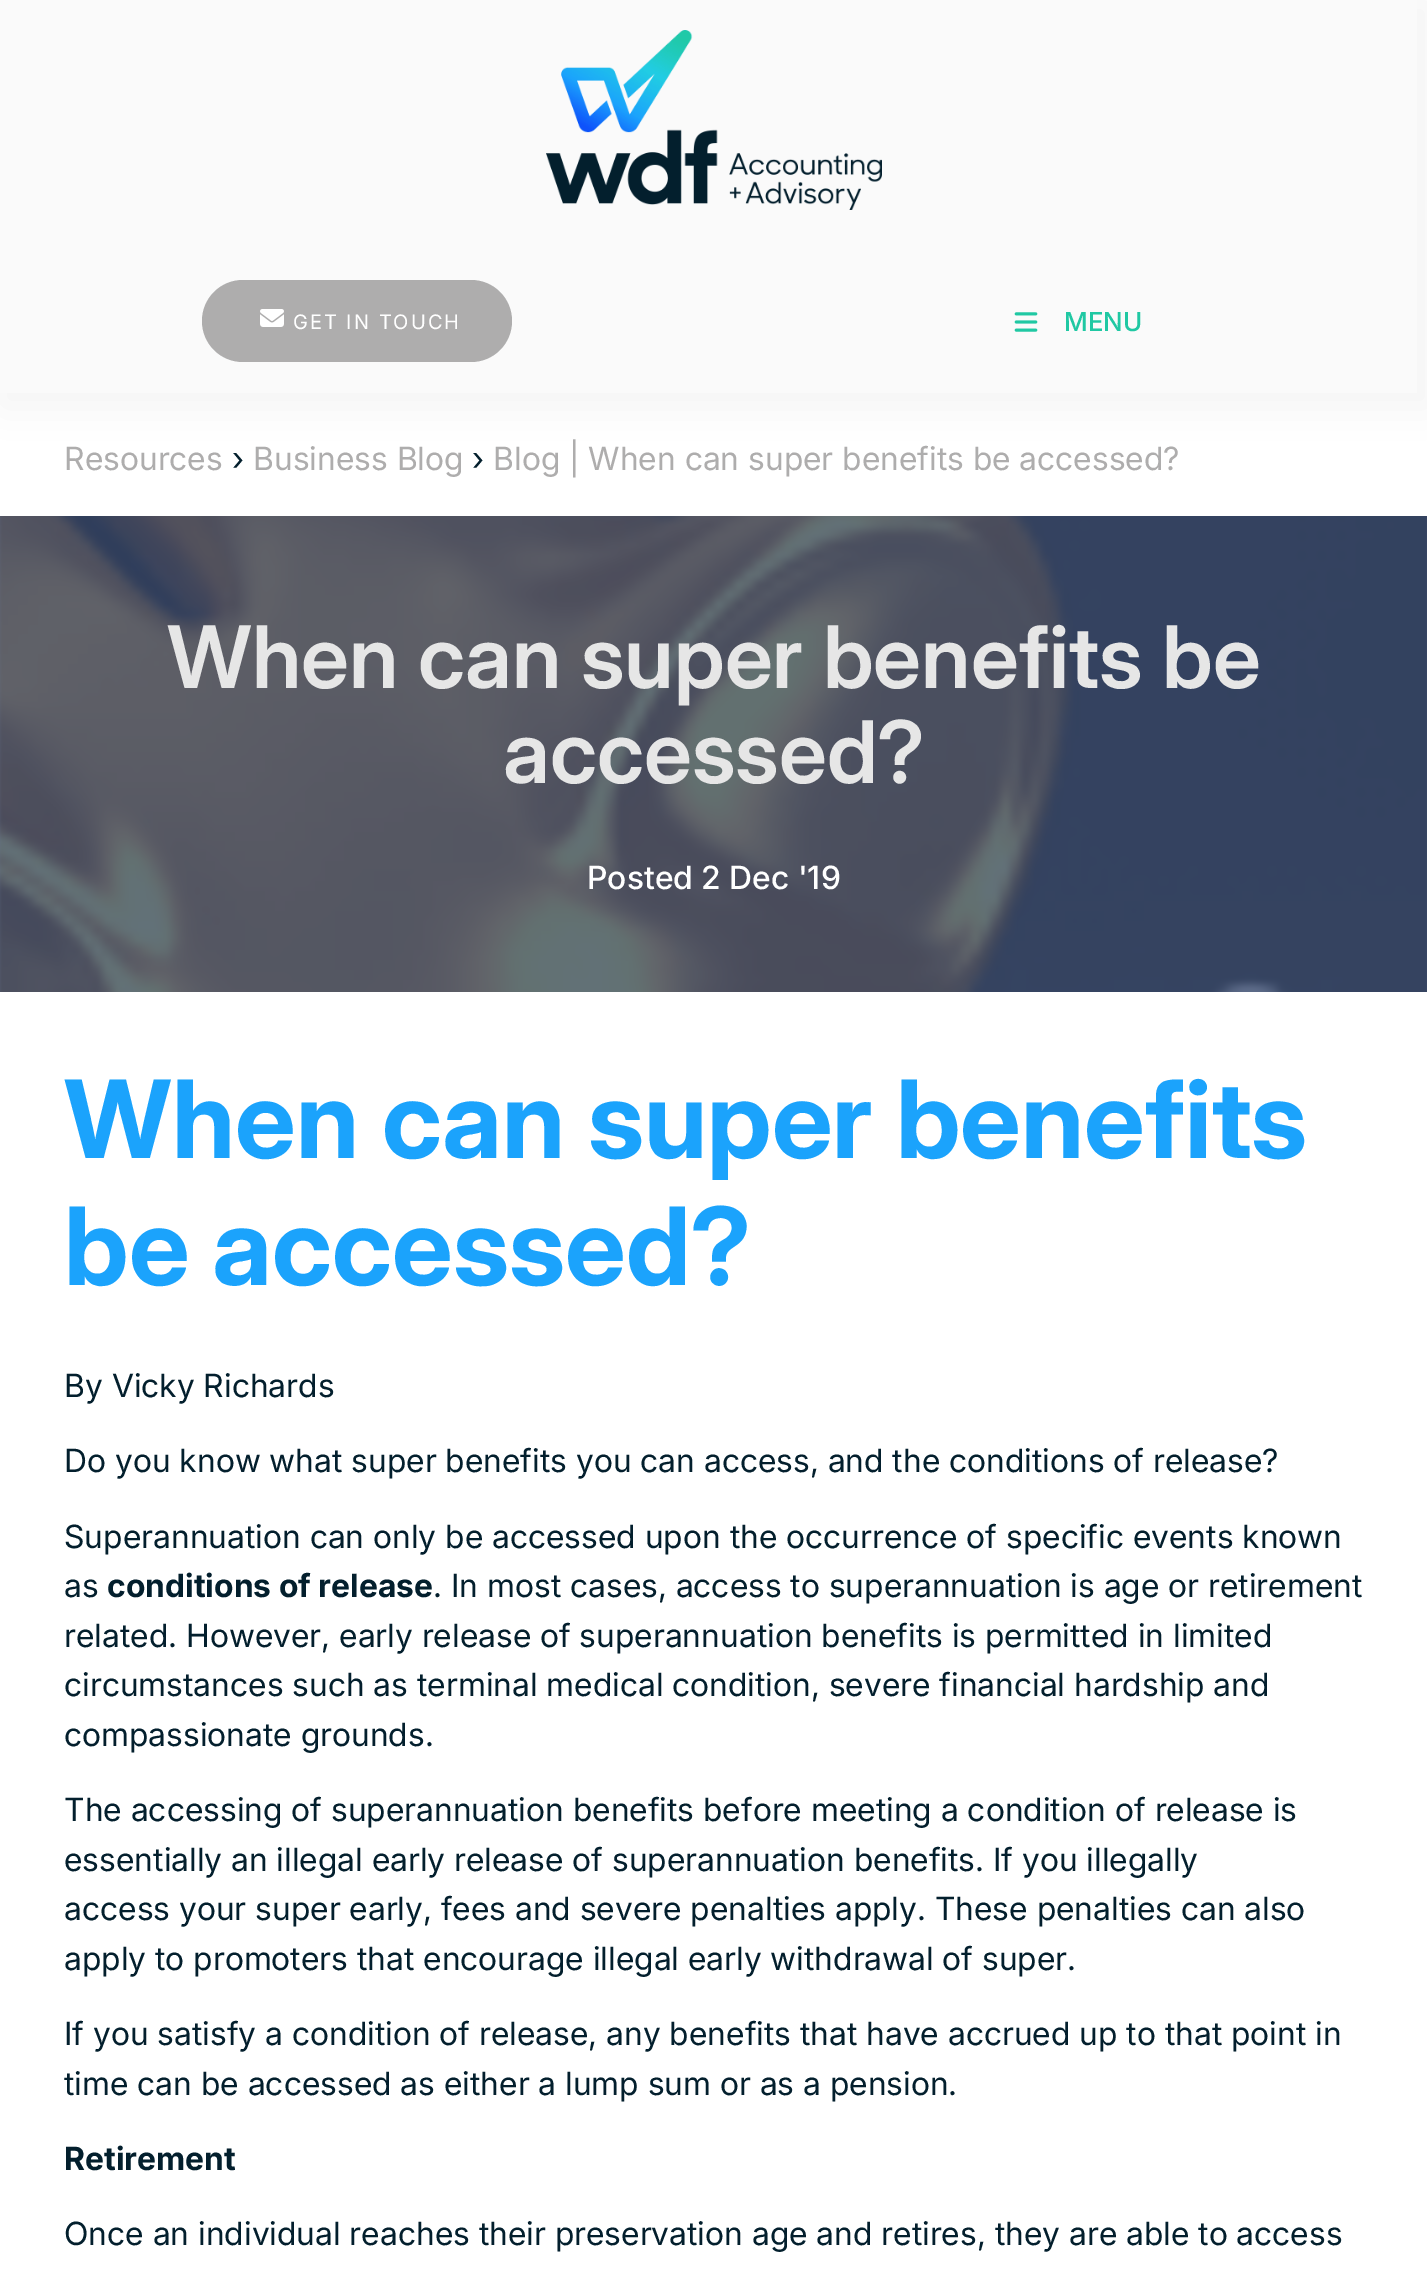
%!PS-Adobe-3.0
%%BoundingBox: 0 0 1427 2269
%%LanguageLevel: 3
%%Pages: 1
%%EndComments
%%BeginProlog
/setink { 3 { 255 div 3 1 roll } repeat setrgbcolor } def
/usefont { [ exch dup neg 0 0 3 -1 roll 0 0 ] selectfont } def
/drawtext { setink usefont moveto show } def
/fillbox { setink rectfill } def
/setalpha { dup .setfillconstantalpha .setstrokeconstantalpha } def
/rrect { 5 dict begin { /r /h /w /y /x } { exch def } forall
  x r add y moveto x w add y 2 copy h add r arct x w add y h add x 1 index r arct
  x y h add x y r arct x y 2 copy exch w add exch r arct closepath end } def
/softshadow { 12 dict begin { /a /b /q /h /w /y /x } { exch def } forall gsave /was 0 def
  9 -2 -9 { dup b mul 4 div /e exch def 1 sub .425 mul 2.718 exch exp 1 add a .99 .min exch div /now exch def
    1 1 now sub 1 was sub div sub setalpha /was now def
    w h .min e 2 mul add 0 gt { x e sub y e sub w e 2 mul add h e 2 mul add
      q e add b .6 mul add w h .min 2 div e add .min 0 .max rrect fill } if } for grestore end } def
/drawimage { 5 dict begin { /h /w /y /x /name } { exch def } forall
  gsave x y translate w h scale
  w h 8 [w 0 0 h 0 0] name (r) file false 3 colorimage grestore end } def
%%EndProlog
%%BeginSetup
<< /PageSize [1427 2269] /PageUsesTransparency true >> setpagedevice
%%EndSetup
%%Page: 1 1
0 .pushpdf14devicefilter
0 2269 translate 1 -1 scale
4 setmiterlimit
0 0 1427 2269 255 255 255 fillbox
51 51 51 setink
2 4 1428 402 0 20 0.05 softshadow
0 0 1417 393 250 250 250 fillbox
(assets/img1.rgb) 546 30 336 180 drawimage
174 173 173 setink
202 280 310 82 41 rrect fill
(assets/img2.rgb) 260 309 24 18 drawimage
/Inter-Regular 20 usefont
255 255 255 setink
293 329 moveto 2 0 (GET IN TOUCH) ashow
(assets/img3.rgb) 1014 312 24 20 drawimage
(MENU) 1064 331 /Inter-Medium 26 32 200 163 drawtext
(Resources) 64 470 /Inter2-Regular 32 174 173 173 drawtext
(›) 232 470 /Inter2-Regular 32 3 31 45 drawtext
(Business Blog) 253 470 /Inter2-Regular 32 174 173 173 drawtext
(›) 472 470 /Inter2-Regular 32 3 31 45 drawtext
(Blog | When can super benefits be accessed?) 493 470 /Inter2-Regular 32 174 173 173 drawtext
(assets/img4.rgb) 0 516 1427 476 drawimage
(When can super benefits be) 167 688 /Inter-SemiBold 86.4 230 230 230 drawtext
(accessed?) 503 783 /Inter-SemiBold 86.4 230 230 230 drawtext
(Posted 2 Dec '19) 587 889 /Inter2-Medium 32 255 255 255 drawtext
(When can super benefits) 64 1158 /Inter-Bold 108 27 163 252 drawtext
(be accessed?) 64 1285 /Inter-Bold 108 27 163 252 drawtext
(By Vicky Richards) 64 1397 /Inter2-Regular 32 3 31 45 drawtext
(Do you know what super benefits you can access, and the conditions of release?) 64 1472 /Inter2-Regular 32 3 31 45 drawtext
(Superannuation can only be accessed upon the occurrence of specific events known) 64 1548 /Inter2-Regular 32 3 31 45 drawtext
(as) 64 1597 /Inter2-Regular 32 3 31 45 drawtext
(conditions of release) 107 1597 /Inter2-Bold 32 3 31 45 drawtext
(. In most cases, access to superannuation is age or retirement) 433 1597 /Inter2-Regular 32 3 31 45 drawtext
(related. However, early release of superannuation benefits is permitted in limited) 64 1647 /Inter2-Regular 32 3 31 45 drawtext
(circumstances such as terminal medical condition, severe financial hardship and) 64 1696 /Inter2-Regular 32 3 31 45 drawtext
(compassionate grounds.) 64 1746 /Inter2-Regular 32 3 31 45 drawtext
(The accessing of superannuation benefits before meeting a condition of release is) 64 1821 /Inter2-Regular 32 3 31 45 drawtext
(essentially an illegal early release of superannuation benefits. If you illegally) 64 1871 /Inter2-Regular 32 3 31 45 drawtext
(access your super early, fees and severe penalties apply. These penalties can also) 64 1920 /Inter2-Regular 32 3 31 45 drawtext
(apply to promoters that encourage illegal early withdrawal of super.) 64 1970 /Inter2-Regular 32 3 31 45 drawtext
(If you satisfy a condition of release, any benefits that have accrued up to that point in) 64 2045 /Inter2-Regular 32 3 31 45 drawtext
(time can be accessed as either a lump sum or as a pension.) 64 2095 /Inter2-Regular 32 3 31 45 drawtext
(Retirement) 64 2170 /Inter2-Bold 32 3 31 45 drawtext
(Once an individual reaches their preservation age and retires, they are able to access) 64 2245 /Inter2-Regular 32 3 31 45 drawtext
.poppdf14devicefilter showpage
%%EOF
